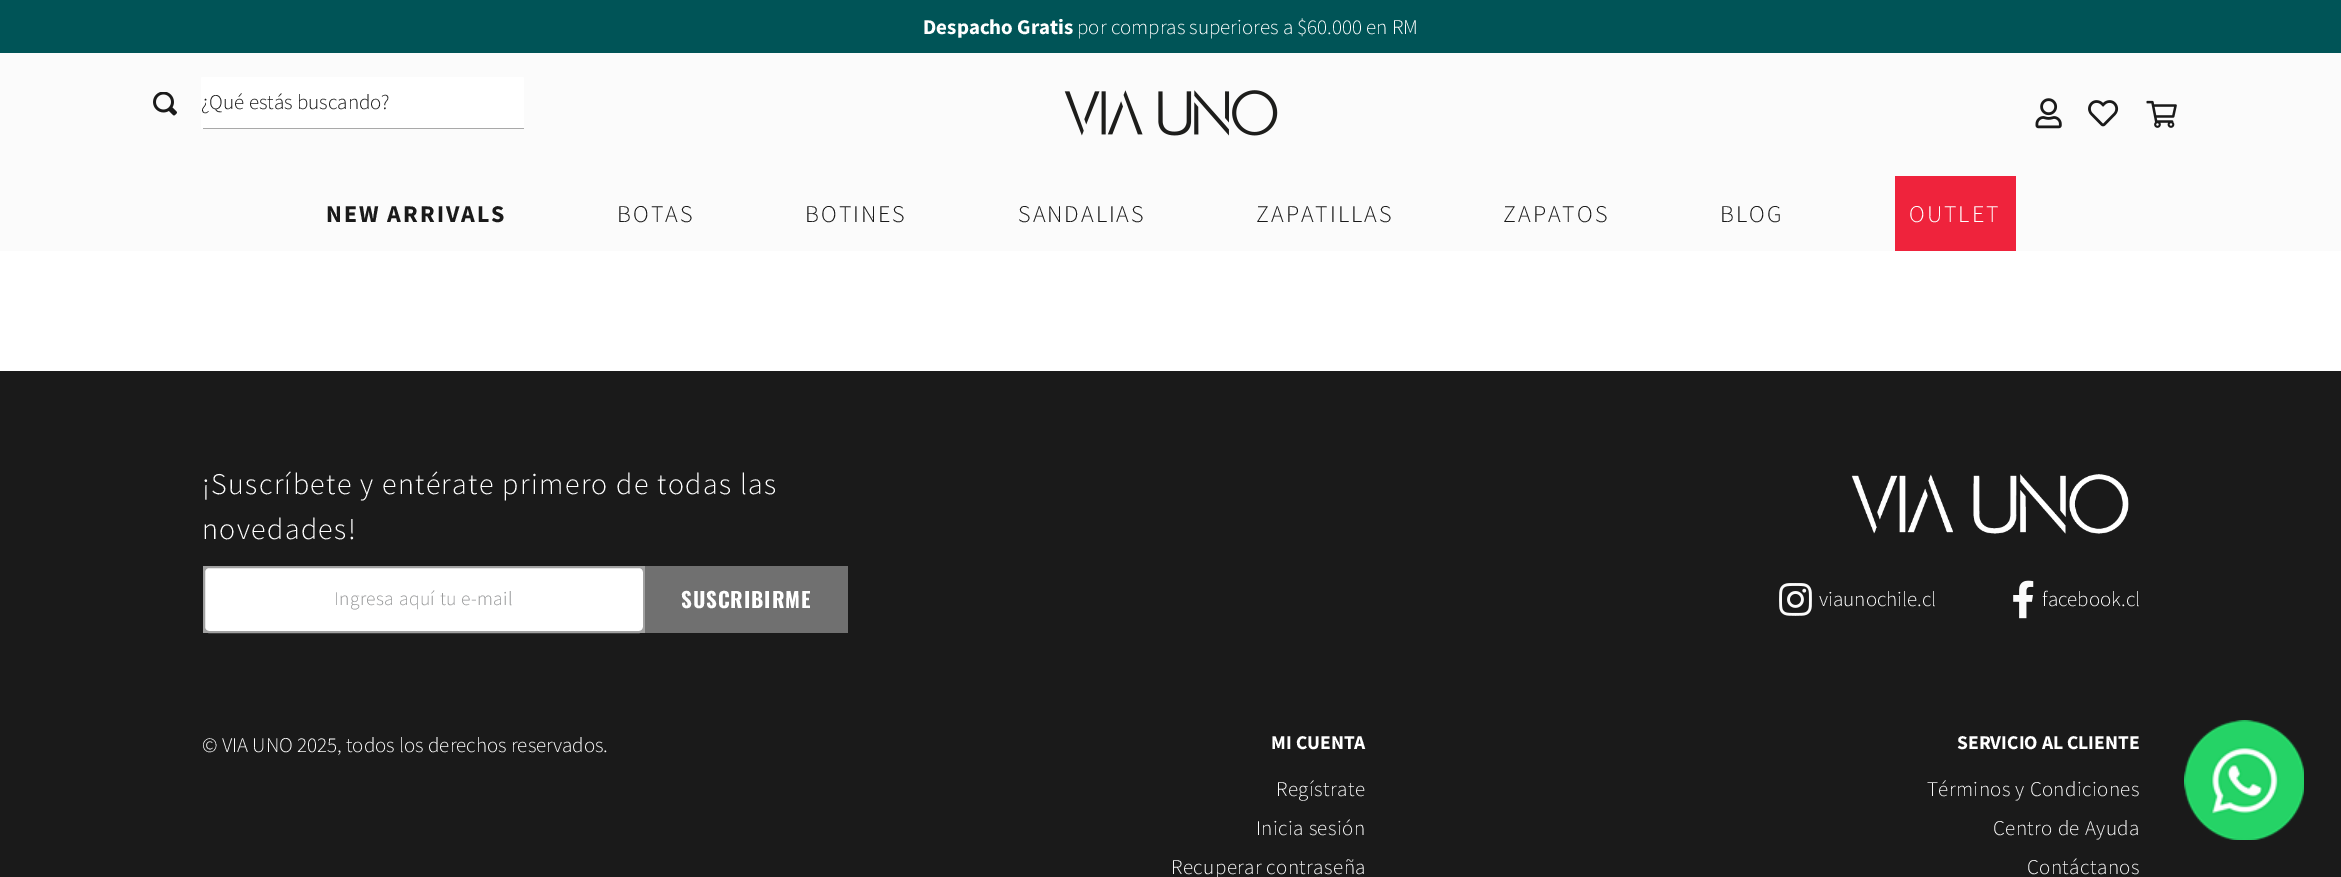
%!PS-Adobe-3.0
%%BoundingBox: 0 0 2341 877
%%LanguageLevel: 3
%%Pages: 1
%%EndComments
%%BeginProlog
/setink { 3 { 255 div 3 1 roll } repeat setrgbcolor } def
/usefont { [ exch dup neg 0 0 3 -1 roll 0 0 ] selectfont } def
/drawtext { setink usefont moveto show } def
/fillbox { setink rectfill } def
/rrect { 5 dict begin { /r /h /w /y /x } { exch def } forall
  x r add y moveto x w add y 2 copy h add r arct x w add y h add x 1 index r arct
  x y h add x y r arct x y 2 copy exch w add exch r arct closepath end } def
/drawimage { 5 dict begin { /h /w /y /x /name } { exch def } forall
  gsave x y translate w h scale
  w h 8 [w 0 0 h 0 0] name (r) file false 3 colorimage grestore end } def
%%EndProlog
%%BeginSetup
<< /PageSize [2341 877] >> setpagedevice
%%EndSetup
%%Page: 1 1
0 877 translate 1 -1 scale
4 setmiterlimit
0 0 2341 877 255 255 255 fillbox
0 0 2341 53 0 84 87 fillbox
(Despacho Gratis) 923 34 /SourceSansPro-Bold 21 255 255 255 drawtext
(por compras superiores a $60.000 en RM) 1077 34 /SourceSansPro-Light 21 255 255 255 drawtext
0 53 2341 198 251 251 251 fillbox
(assets/img1.rgb) 153 92 24 24 drawimage
255 255 255 setink
201 77 323 52 1.5 rrect fill
203 128 321 1 169 169 169 fillbox
(¿Qué estás buscando?) 201 109 /SourceSansPro-Light 21 26 26 26 drawtext
(assets/img2.rgb) 1064 90 214 46 drawimage
(assets/img3.rgb) 2035 98 27 31 drawimage
(assets/img4.rgb) 2088 100 31 27 drawimage
(assets/img5.rgb) 2146 100 31 28 drawimage
/SourceSansPro-Bold 24 usefont
326 222 moveto 2 0 (NEW ARRIVALS) ashow
/SourceSansPro-Light 24 usefont
617 222 moveto 2 0 (BOTAS) ashow
805 222 moveto 2 0 (BOTINES) ashow
1018 222 moveto 2 0 (SANDALIAS) ashow
1256 222 moveto 2 0 (ZAPATILLAS) ashow
1503 222 moveto 2 0 (ZAPATOS) ashow
1720 222 moveto 2 0 (BLOG) ashow
1895 176 121 75 239 35 60 fillbox
255 255 255 setink
1909 222 moveto 2 0 (OUTLET) ashow
0 371 2341 506 26 26 26 fillbox
/SourceSansPro-Light 30 usefont
255 255 255 setink
202 494 moveto 1.35 0 (¡Suscríbete y entérate primero de todas las) ashow
202 539 moveto 1.35 0 (novedades!) ashow
203 566 442 67 161 161 161 fillbox
255 255 255 setink
204 567 440 65 5 rrect gsave fill grestore
161 161 161 setink
2 setlinewidth
stroke
/SourceSansPro-Light 19.5 usefont
151 152 153 setink
334 605 moveto 0.4 0 (Ingresa aquí tu e-mail) ashow
645 566 203 67 112 112 112 fillbox
/Oswald-Bold 21 usefont
255 255 255 setink
681 608 moveto 0.9 0 (SUSCRIBIRME) ashow
(assets/img6.rgb) 1851 474 278 60 drawimage
(assets/img7.rgb) 1779 583 33 33 drawimage
(viaunochile.cl) 1819 606 /SourceSansPro-Light 21 255 255 255 drawtext
(assets/img8.rgb) 2013 580 21 39 drawimage
(facebook.cl) 2042 606 /SourceSansPro-Light 21 255 255 255 drawtext
(© VIA UNO 2025, todos los derechos reservados.) 202 752 /SourceSansPro-Light 21 255 255 255 drawtext
(MI CUENTA) 1271 749 /SourceSansPro-Bold 19.5 255 255 255 drawtext
/SourceSansPro-Light 21 usefont
249 249 249 setink
1276 796 moveto 0.4 0 (Regístrate) ashow
1256 835 moveto 0.4 0 (Inicia sesión) ashow
1171 874 moveto 0.4 0 (Recuperar contraseña) ashow
(SERVICIO AL CLIENTE) 1957 749 /SourceSansPro-Bold 19.5 255 255 255 drawtext
/SourceSansPro-Light 21 usefont
249 249 249 setink
1927 796 moveto 0.4 0 (Términos y Condiciones) ashow
1993 835 moveto 0.4 0 (Centro de Ayuda) ashow
2027 874 moveto 0.4 0 (Contáctanos) ashow
(assets/img9.rgb) 2184 720 120 120 drawimage
showpage
%%EOF
